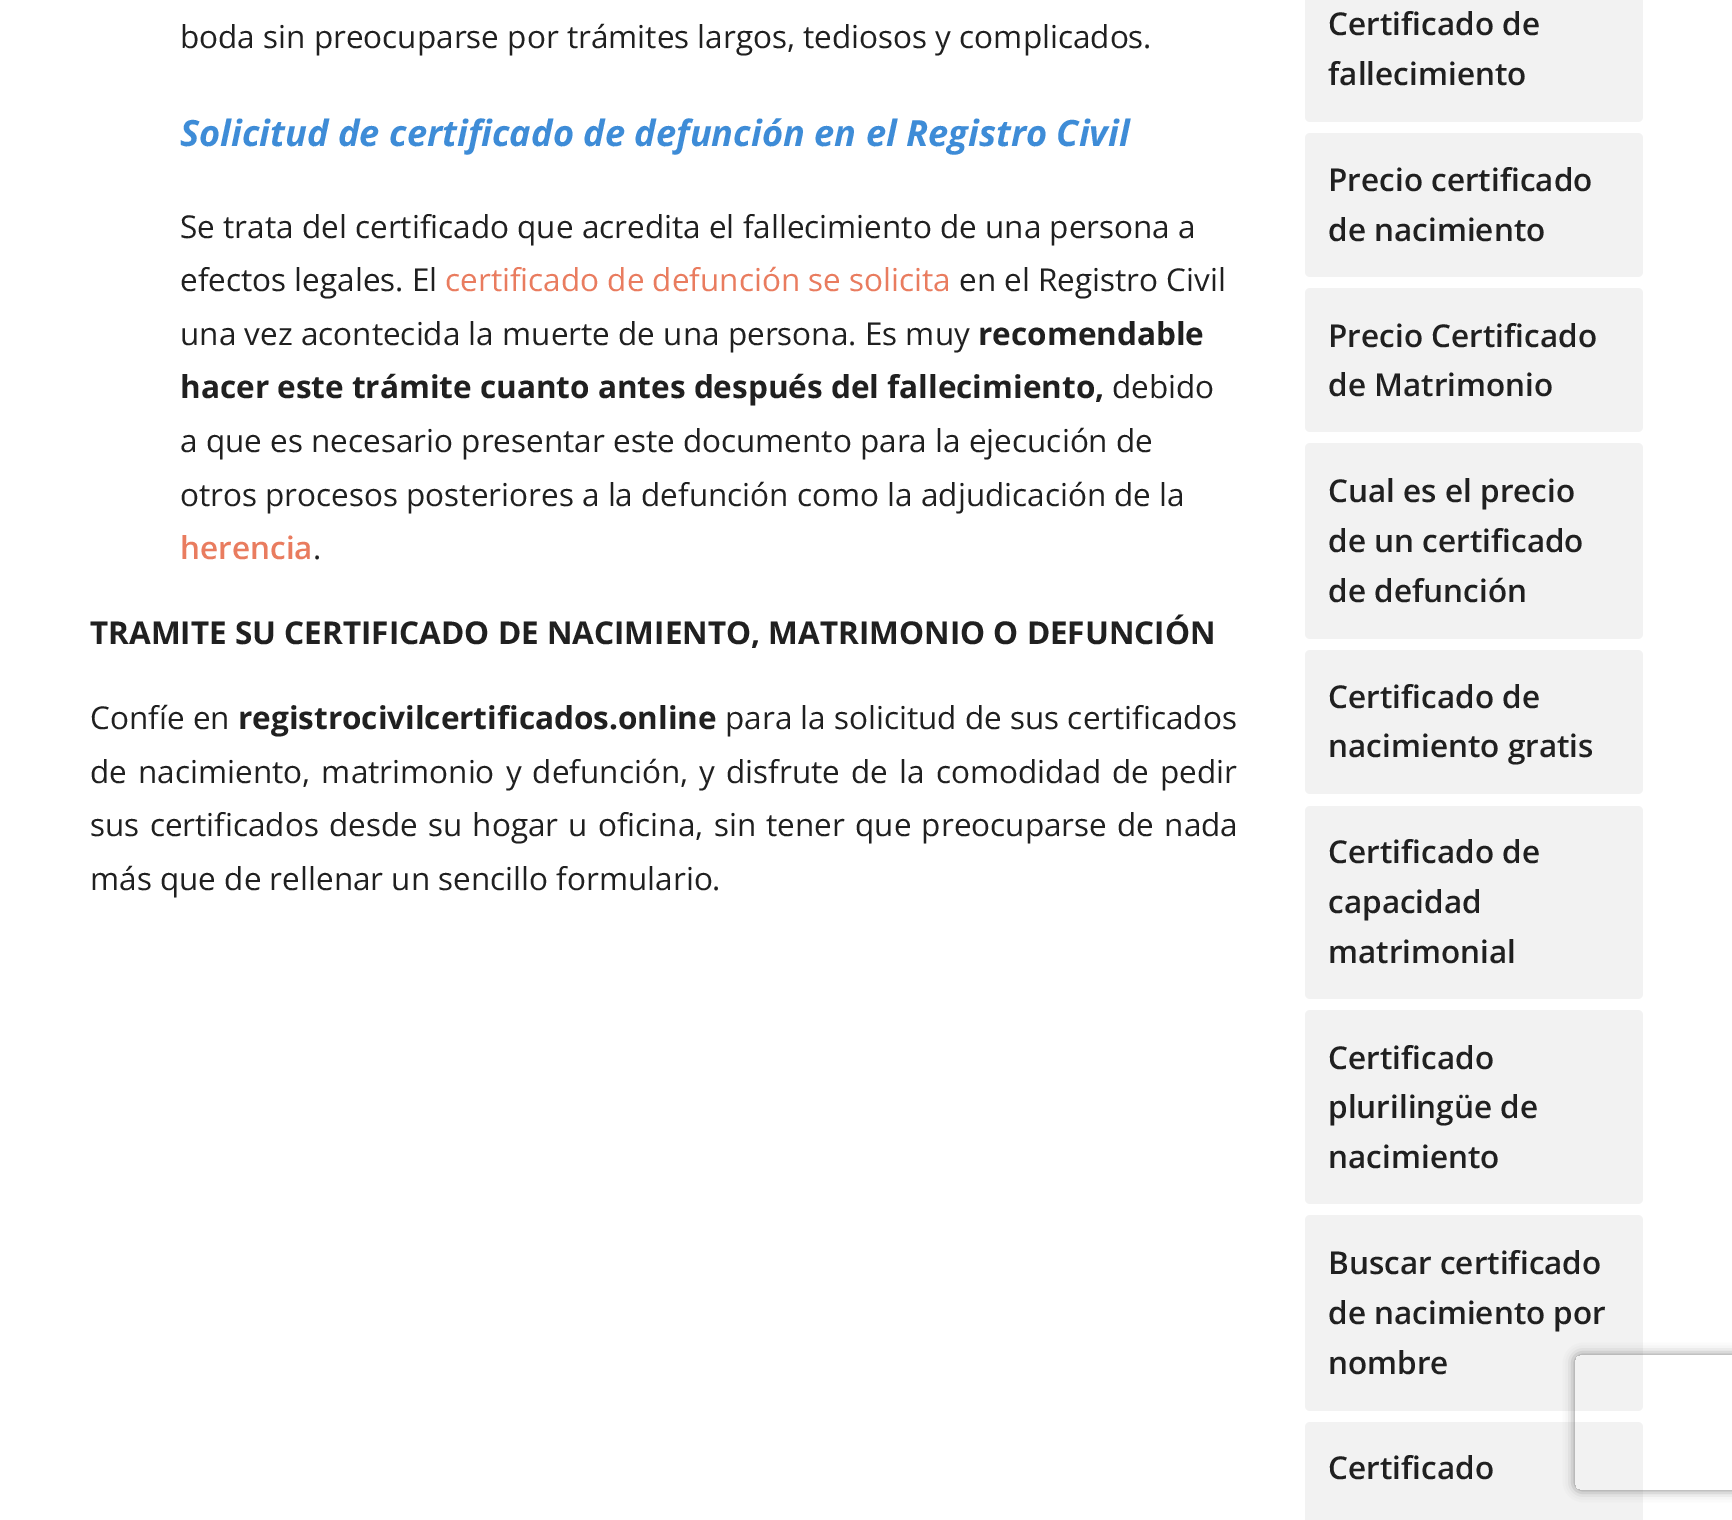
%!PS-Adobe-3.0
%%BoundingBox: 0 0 1732 1520
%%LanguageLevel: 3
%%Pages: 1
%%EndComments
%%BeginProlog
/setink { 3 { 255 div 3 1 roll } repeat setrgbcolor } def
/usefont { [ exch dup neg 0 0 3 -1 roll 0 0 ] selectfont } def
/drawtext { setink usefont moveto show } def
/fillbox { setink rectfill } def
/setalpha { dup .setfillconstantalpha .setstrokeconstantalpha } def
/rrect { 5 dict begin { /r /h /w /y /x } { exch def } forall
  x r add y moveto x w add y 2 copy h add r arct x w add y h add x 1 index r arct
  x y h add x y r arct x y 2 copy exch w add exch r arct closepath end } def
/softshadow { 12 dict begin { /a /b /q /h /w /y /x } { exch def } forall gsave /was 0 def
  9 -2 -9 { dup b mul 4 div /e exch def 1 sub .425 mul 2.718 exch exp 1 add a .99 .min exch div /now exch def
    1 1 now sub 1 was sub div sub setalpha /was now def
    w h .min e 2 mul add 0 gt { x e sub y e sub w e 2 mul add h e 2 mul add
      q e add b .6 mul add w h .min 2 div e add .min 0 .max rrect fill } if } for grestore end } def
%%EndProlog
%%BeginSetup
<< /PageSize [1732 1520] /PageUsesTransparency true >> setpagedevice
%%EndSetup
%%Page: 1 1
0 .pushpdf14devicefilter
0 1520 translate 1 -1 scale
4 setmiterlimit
0 0 1732 1520 255 255 255 fillbox
(boda sin preocuparse por trámites largos, tediosos y complicados.) 180 48 /OpenSans-Regular 31.5 32 32 32 drawtext
(Solicitud de certificado de defunción en el Registro Civil) 180 146 /OpenSans-BoldItalic 36.25 62 140 215 drawtext
(Se trata del certificado que acredita el fallecimiento de una persona a) 180 238 /OpenSans-Regular 31.5 32 32 32 drawtext
(efectos legales. El) 180 291 /OpenSans-Regular 31.5 32 32 32 drawtext
(certificado de defunción se solicita) 445 291 /OpenSans-Regular 31.5 233 124 95 drawtext
(en el Registro Civil) 959 291 /OpenSans-Regular 31.5 32 32 32 drawtext
(una vez acontecida la muerte de una persona. Es muy) 180 345 /OpenSans-Regular 31.5 32 32 32 drawtext
(recomendable) 978 345 /OpenSans-Bold 31.5 32 32 32 drawtext
(hacer este trámite cuanto antes después del fallecimiento,) 180 398 /OpenSans-Bold 31.5 32 32 32 drawtext
(debido) 1112 398 /OpenSans-Regular 31.5 32 32 32 drawtext
(a que es necesario presentar este documento para la ejecución de) 180 452 /OpenSans-Regular 31.5 32 32 32 drawtext
(otros procesos posteriores a la defunción como la adjudicación de la) 180 506 /OpenSans-Regular 31.5 32 32 32 drawtext
(herencia) 180 559 /OpenSans-SemiBold 31.5 233 124 95 drawtext
(.) 313 559 /OpenSans-Regular 31.5 32 32 32 drawtext
(TRAMITE SU CERTIFICADO DE NACIMIENTO, MATRIMONIO O DEFUNCIÓN) 90 644 /OpenSans-Bold 31.5 32 32 32 drawtext
(Confíe en) 90 729 /OpenSans-Regular 31.5 32 32 32 drawtext
(registrocivilcertificados.online) 238 729 /OpenSans-Bold 31.5 32 32 32 drawtext
(para la solicitud de sus certificados) 725 729 /OpenSans-Regular 31.5 32 32 32 drawtext
90 783 moveto 2.9 0 32 (de nacimiento, matrimonio y defunción, y disfrute de la comodidad de pedir) widthshow
90 836 moveto 2 0 32 (sus certificados desde su hogar u oficina, sin tener que preocuparse de nada) widthshow
(más que de rellenar un sencillo formulario.) 90 890 /OpenSans-Regular 31.5 32 32 32 drawtext
242 242 242 setink
1305 -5 338 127 5 rrect fill
(Certificado de) 1328 35 /OpenSans-SemiBold 31.5 32 32 32 drawtext
(fallecimiento) 1328 85 /OpenSans-SemiBold 31.5 32 32 32 drawtext
242 242 242 setink
1305 133 338 144 5 rrect fill
(Precio certificado) 1328 191 /OpenSans-SemiBold 31.5 32 32 32 drawtext
(de nacimiento) 1328 241 /OpenSans-SemiBold 31.5 32 32 32 drawtext
242 242 242 setink
1305 288 338 144 5 rrect fill
(Precio Certificado) 1328 347 /OpenSans-SemiBold 31.5 32 32 32 drawtext
(de Matrimonio) 1328 396 /OpenSans-SemiBold 31.5 32 32 32 drawtext
242 242 242 setink
1305 443 338 196 5 rrect fill
(Cual es el precio) 1328 502 /OpenSans-SemiBold 31.5 32 32 32 drawtext
(de un certificado) 1328 552 /OpenSans-SemiBold 31.5 32 32 32 drawtext
(de defunción) 1328 602 /OpenSans-SemiBold 31.5 32 32 32 drawtext
242 242 242 setink
1305 650 338 144 5 rrect fill
(Certificado de) 1328 708 /OpenSans-SemiBold 31.5 32 32 32 drawtext
(nacimiento gratis) 1328 757 /OpenSans-SemiBold 31.5 32 32 32 drawtext
242 242 242 setink
1305 806 338 193 5 rrect fill
(Certificado de) 1328 863 /OpenSans-SemiBold 31.5 32 32 32 drawtext
(capacidad) 1328 913 /OpenSans-SemiBold 31.5 32 32 32 drawtext
(matrimonial) 1328 963 /OpenSans-SemiBold 31.5 32 32 32 drawtext
242 242 242 setink
1305 1010 338 194 5 rrect fill
(Certificado) 1328 1069 /OpenSans-SemiBold 31.5 32 32 32 drawtext
(plurilingüe de) 1328 1118 /OpenSans-SemiBold 31.5 32 32 32 drawtext
(nacimiento) 1328 1168 /OpenSans-SemiBold 31.5 32 32 32 drawtext
242 242 242 setink
1305 1215 338 196 5 rrect fill
(Buscar certificado) 1328 1274 /OpenSans-SemiBold 31.5 32 32 32 drawtext
(de nacimiento por) 1328 1324 /OpenSans-SemiBold 31.5 32 32 32 drawtext
(nombre) 1328 1374 /OpenSans-SemiBold 31.5 32 32 32 drawtext
242 242 242 setink
1305 1422 338 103 5 rrect fill
(Certificado) 1328 1479 /OpenSans-SemiBold 31.5 32 32 32 drawtext
gsave
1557 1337 moveto 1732 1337 lineto 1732 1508 lineto 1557 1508 lineto closepath 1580 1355 moveto 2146 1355 lineto 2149 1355 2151 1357 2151 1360 curveto 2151 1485 lineto 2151 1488 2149 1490 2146 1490 curveto 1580 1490 lineto 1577 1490 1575 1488 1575 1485 curveto 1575 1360 lineto 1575 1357 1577 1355 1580 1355 curveto closepath eoclip newpath
128 128 128 setink
1575 1355 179 135 5 5.5 1 softshadow
grestore
.poppdf14devicefilter showpage
%%EOF
